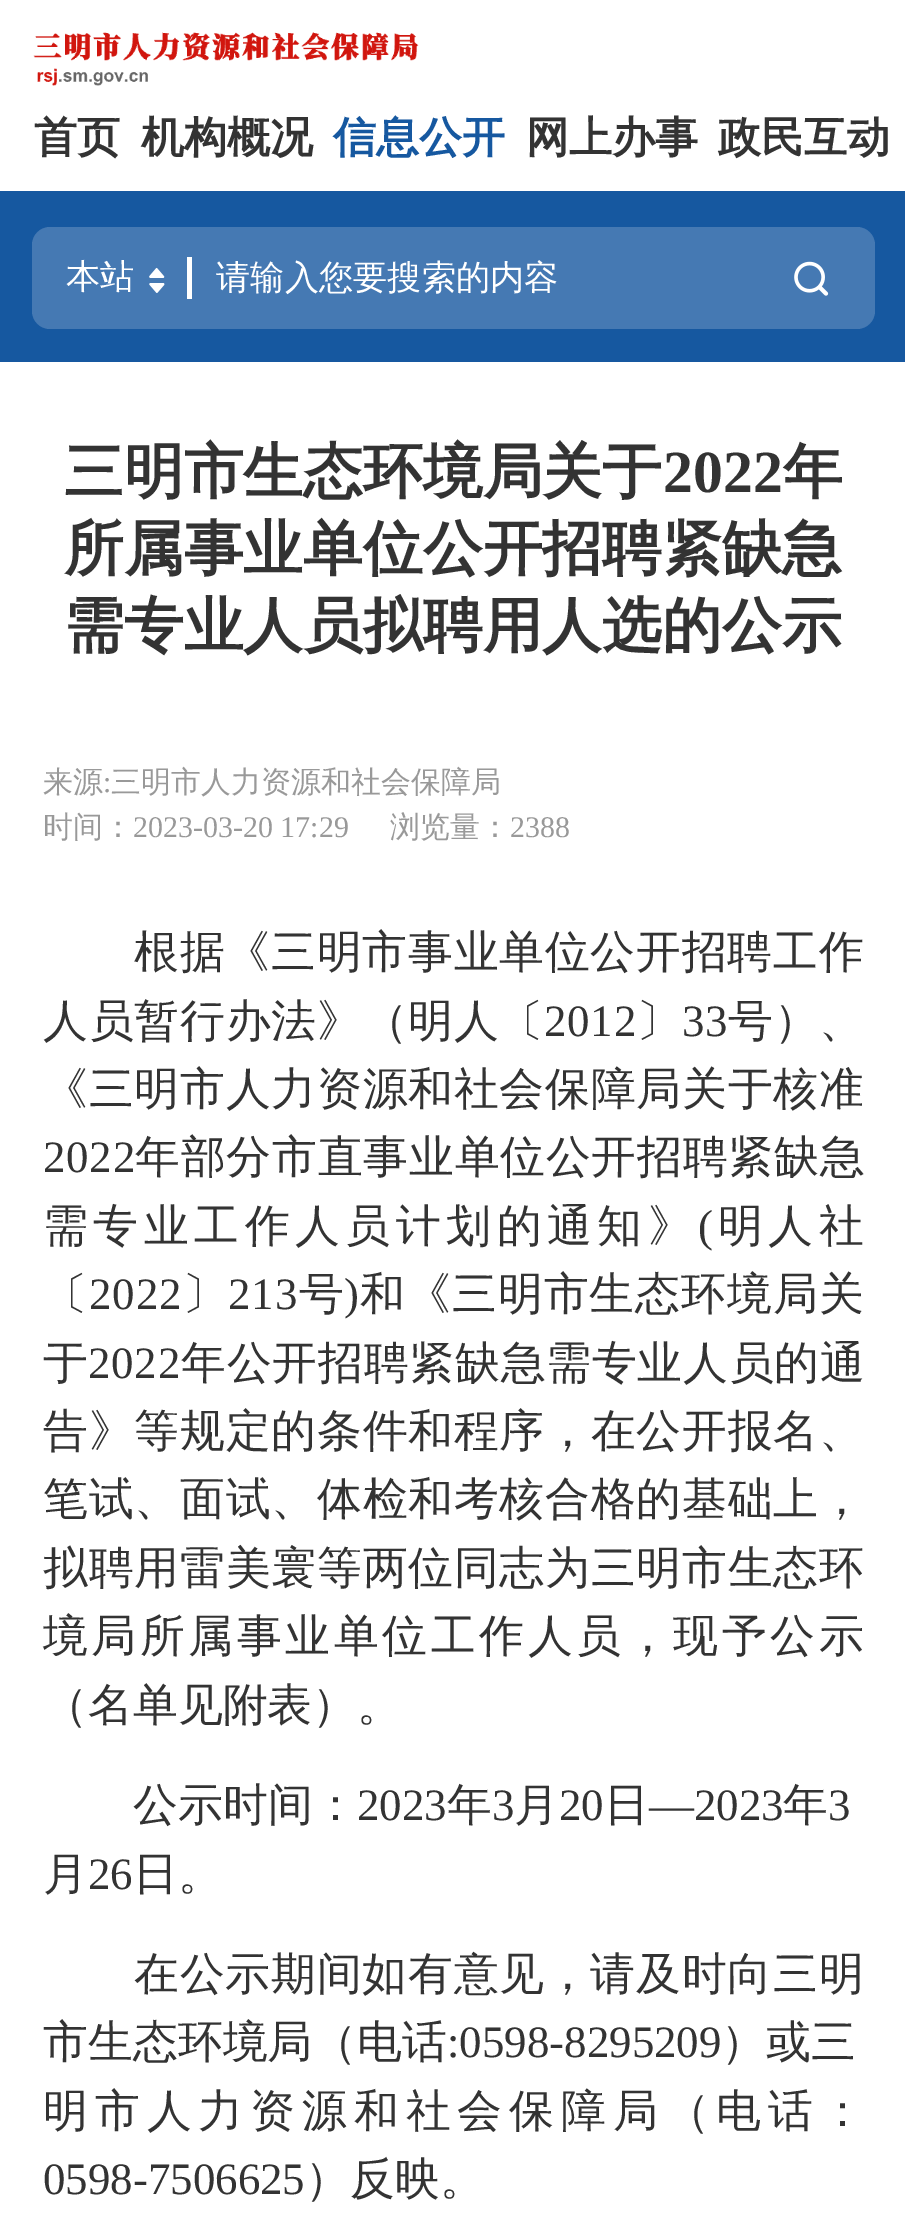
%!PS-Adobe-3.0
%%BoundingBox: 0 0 905 2219
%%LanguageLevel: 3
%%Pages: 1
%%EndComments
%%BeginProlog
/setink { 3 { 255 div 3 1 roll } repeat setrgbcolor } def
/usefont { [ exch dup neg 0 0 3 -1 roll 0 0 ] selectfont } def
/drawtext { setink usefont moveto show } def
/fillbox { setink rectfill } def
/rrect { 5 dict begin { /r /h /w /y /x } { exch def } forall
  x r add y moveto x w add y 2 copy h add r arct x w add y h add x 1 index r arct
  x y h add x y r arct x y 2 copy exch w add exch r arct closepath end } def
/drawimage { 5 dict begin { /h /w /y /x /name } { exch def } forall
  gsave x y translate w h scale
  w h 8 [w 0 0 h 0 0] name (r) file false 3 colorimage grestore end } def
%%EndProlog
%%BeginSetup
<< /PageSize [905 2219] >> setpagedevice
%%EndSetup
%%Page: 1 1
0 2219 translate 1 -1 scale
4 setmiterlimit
0 0 905 2219 255 255 255 fillbox
(assets/img1.rgb) 33 32 386 54 drawimage
(首页) 34 152 /WenQuanYiZenHei-Bold 43 51 51 51 drawtext
(机构概况) 141 152 /WenQuanYiZenHei-Bold 43 51 51 51 drawtext
(信息公开) 333 152 /WenQuanYiZenHei-Bold 43 22 88 160 drawtext
(网上办事) 526 152 /WenQuanYiZenHei-Bold 43 51 51 51 drawtext
(政民互动) 718 152 /WenQuanYiZenHei-Bold 43 51 51 51 drawtext
0 191 905 171 22 88 160 fillbox
69 121 179 setink
32 227 843 102 18 rrect fill
(本站) 66 288 /WenQuanYiZenHei-Medium 34.25 255 255 255 drawtext
(assets/img2.rgb) 149 267 16 26 drawimage
187 257 5 42 255 255 255 fillbox
(请输入您要搜索的内容) 216 289 /WenQuanYiZenHei-Medium 34.25 255 255 255 drawtext
(assets/img3.rgb) 794 261 35 35 drawimage
(三明市生态环境局关于) 64 492 /WenQuanYiZenHei-Bold 59.8 51 51 51 drawtext
(2022) 663 492 /LiberationSerif-Bold 59.8 51 51 51 drawtext
(年) 783 492 /WenQuanYiZenHei-Bold 59.8 51 51 51 drawtext
(所属事业单位公开招聘紧缺急) 64 569 /WenQuanYiZenHei-Bold 59.8 51 51 51 drawtext
(需专业人员拟聘用人选的公示) 64 646 /WenQuanYiZenHei-Bold 59.8 51 51 51 drawtext
(来源) 43 792 /WenQuanYiZenHei-Medium 30 153 153 153 drawtext
(:) 103 792 /LiberationSerif-Regular 30 153 153 153 drawtext
(三明市人力资源和社会保障局) 111 792 /WenQuanYiZenHei-Medium 30 153 153 153 drawtext
(时间：) 43 837 /WenQuanYiZenHei-Medium 30 153 153 153 drawtext
(2023-03-20 17:29) 133 837 /LiberationSerif-Regular 30 153 153 153 drawtext
(浏览量：) 390 837 /WenQuanYiZenHei-Medium 30 153 153 153 drawtext
(2388) 510 837 /LiberationSerif-Regular 30 153 153 153 drawtext
/WenQuanYiZenHei-Medium 44.9 usefont
51 51 51 setink
134 967 moveto 0.75 0 (根据《三明市事业单位公开招聘工作) ashow
43 1036 moveto 0.75 0 (人员暂行办法》（明人〔) ashow
/LiberationSerif-Regular 44.9 usefont
544 1036 moveto 0.75 0 (2012) ashow
/WenQuanYiZenHei-Medium 44.9 usefont
636 1036 moveto 0.75 0 (〕) ashow
/LiberationSerif-Regular 44.9 usefont
682 1036 moveto 0.75 0 (33) ashow
/WenQuanYiZenHei-Medium 44.9 usefont
728 1036 moveto 0.75 0 (号）、) ashow
43 1104 moveto 0.75 0 (《三明市人力资源和社会保障局关于核准) ashow
/LiberationSerif-Regular 44.9 usefont
43 1172 moveto 0.75 0 (2022) ashow
/WenQuanYiZenHei-Medium 44.9 usefont
135 1172 moveto 0.75 0 (年部分市直事业单位公开招聘紧缺急) ashow
43 1241 moveto 5.5 0 (需专业工作人员计划的通知》) ashow
/LiberationSerif-Regular 44.9 usefont
698 1241 moveto 5.5 0 (\() ashow
/WenQuanYiZenHei-Medium 44.9 usefont
718 1241 moveto 5.5 0 (明人社) ashow
43 1309 moveto 1 0 (〔) ashow
/LiberationSerif-Regular 44.9 usefont
89 1309 moveto 1 0 (2022) ashow
/WenQuanYiZenHei-Medium 44.9 usefont
182 1309 moveto 1 0 (〕) ashow
/LiberationSerif-Regular 44.9 usefont
228 1309 moveto 1 0 (213) ashow
/WenQuanYiZenHei-Medium 44.9 usefont
299 1309 moveto 1 0 (号) ashow
/LiberationSerif-Regular 44.9 usefont
344 1309 moveto 1 0 (\)) ashow
/WenQuanYiZenHei-Medium 44.9 usefont
360 1309 moveto 1 0 (和《三明市生态环境局关) ashow
43 1378 moveto 0.75 0 (于) ashow
/LiberationSerif-Regular 44.9 usefont
88 1378 moveto 0.75 0 (2022) ashow
/WenQuanYiZenHei-Medium 44.9 usefont
181 1378 moveto 0.75 0 (年公开招聘紧缺急需专业人员的通) ashow
43 1446 moveto 0.75 0 (告》等规定的条件和程序，在公开报名、) ashow
43 1514 moveto 0.75 0 (笔试、面试、体检和考核合格的基础上，) ashow
43 1583 moveto 0.75 0 (拟聘用雷美寰等两位同志为三明市生态环) ashow
43 1651 moveto 3.6 0 (境局所属事业单位工作人员，现予公示) ashow
(（名单见附表）。) 43 1720 /WenQuanYiZenHei-Medium 44.9 51 51 51 drawtext
(公示时间：) 133 1820 /WenQuanYiZenHei-Medium 44.9 51 51 51 drawtext
(2023) 357 1820 /LiberationSerif-Regular 44.9 51 51 51 drawtext
(年) 447 1820 /WenQuanYiZenHei-Medium 44.9 51 51 51 drawtext
(3) 492 1820 /LiberationSerif-Regular 44.9 51 51 51 drawtext
(月) 514 1820 /WenQuanYiZenHei-Medium 44.9 51 51 51 drawtext
(20) 559 1820 /LiberationSerif-Regular 44.9 51 51 51 drawtext
(日) 604 1820 /WenQuanYiZenHei-Medium 44.9 51 51 51 drawtext
(—2023) 649 1820 /LiberationSerif-Regular 44.9 51 51 51 drawtext
(年) 783 1820 /WenQuanYiZenHei-Medium 44.9 51 51 51 drawtext
(3) 828 1820 /LiberationSerif-Regular 44.9 51 51 51 drawtext
(月) 43 1889 /WenQuanYiZenHei-Medium 44.9 51 51 51 drawtext
(26) 88 1889 /LiberationSerif-Regular 44.9 51 51 51 drawtext
(日。) 133 1889 /WenQuanYiZenHei-Medium 44.9 51 51 51 drawtext
134 1989 moveto 0.75 0 (在公示期间如有意见，请及时向三明) ashow
(市生态环境局（电话) 43 2057 /WenQuanYiZenHei-Medium 44.9 51 51 51 drawtext
(:0598-8295209) 447 2057 /LiberationSerif-Regular 44.9 51 51 51 drawtext
(）或三) 721 2057 /WenQuanYiZenHei-Medium 44.9 51 51 51 drawtext
43 2126 moveto 6.9 0 (明市人力资源和社会保障局（电话：) ashow
(0598-7506625) 43 2194 /LiberationSerif-Regular 44.9 51 51 51 drawtext
(）反映。) 305 2194 /WenQuanYiZenHei-Medium 44.9 51 51 51 drawtext
showpage
%%EOF
